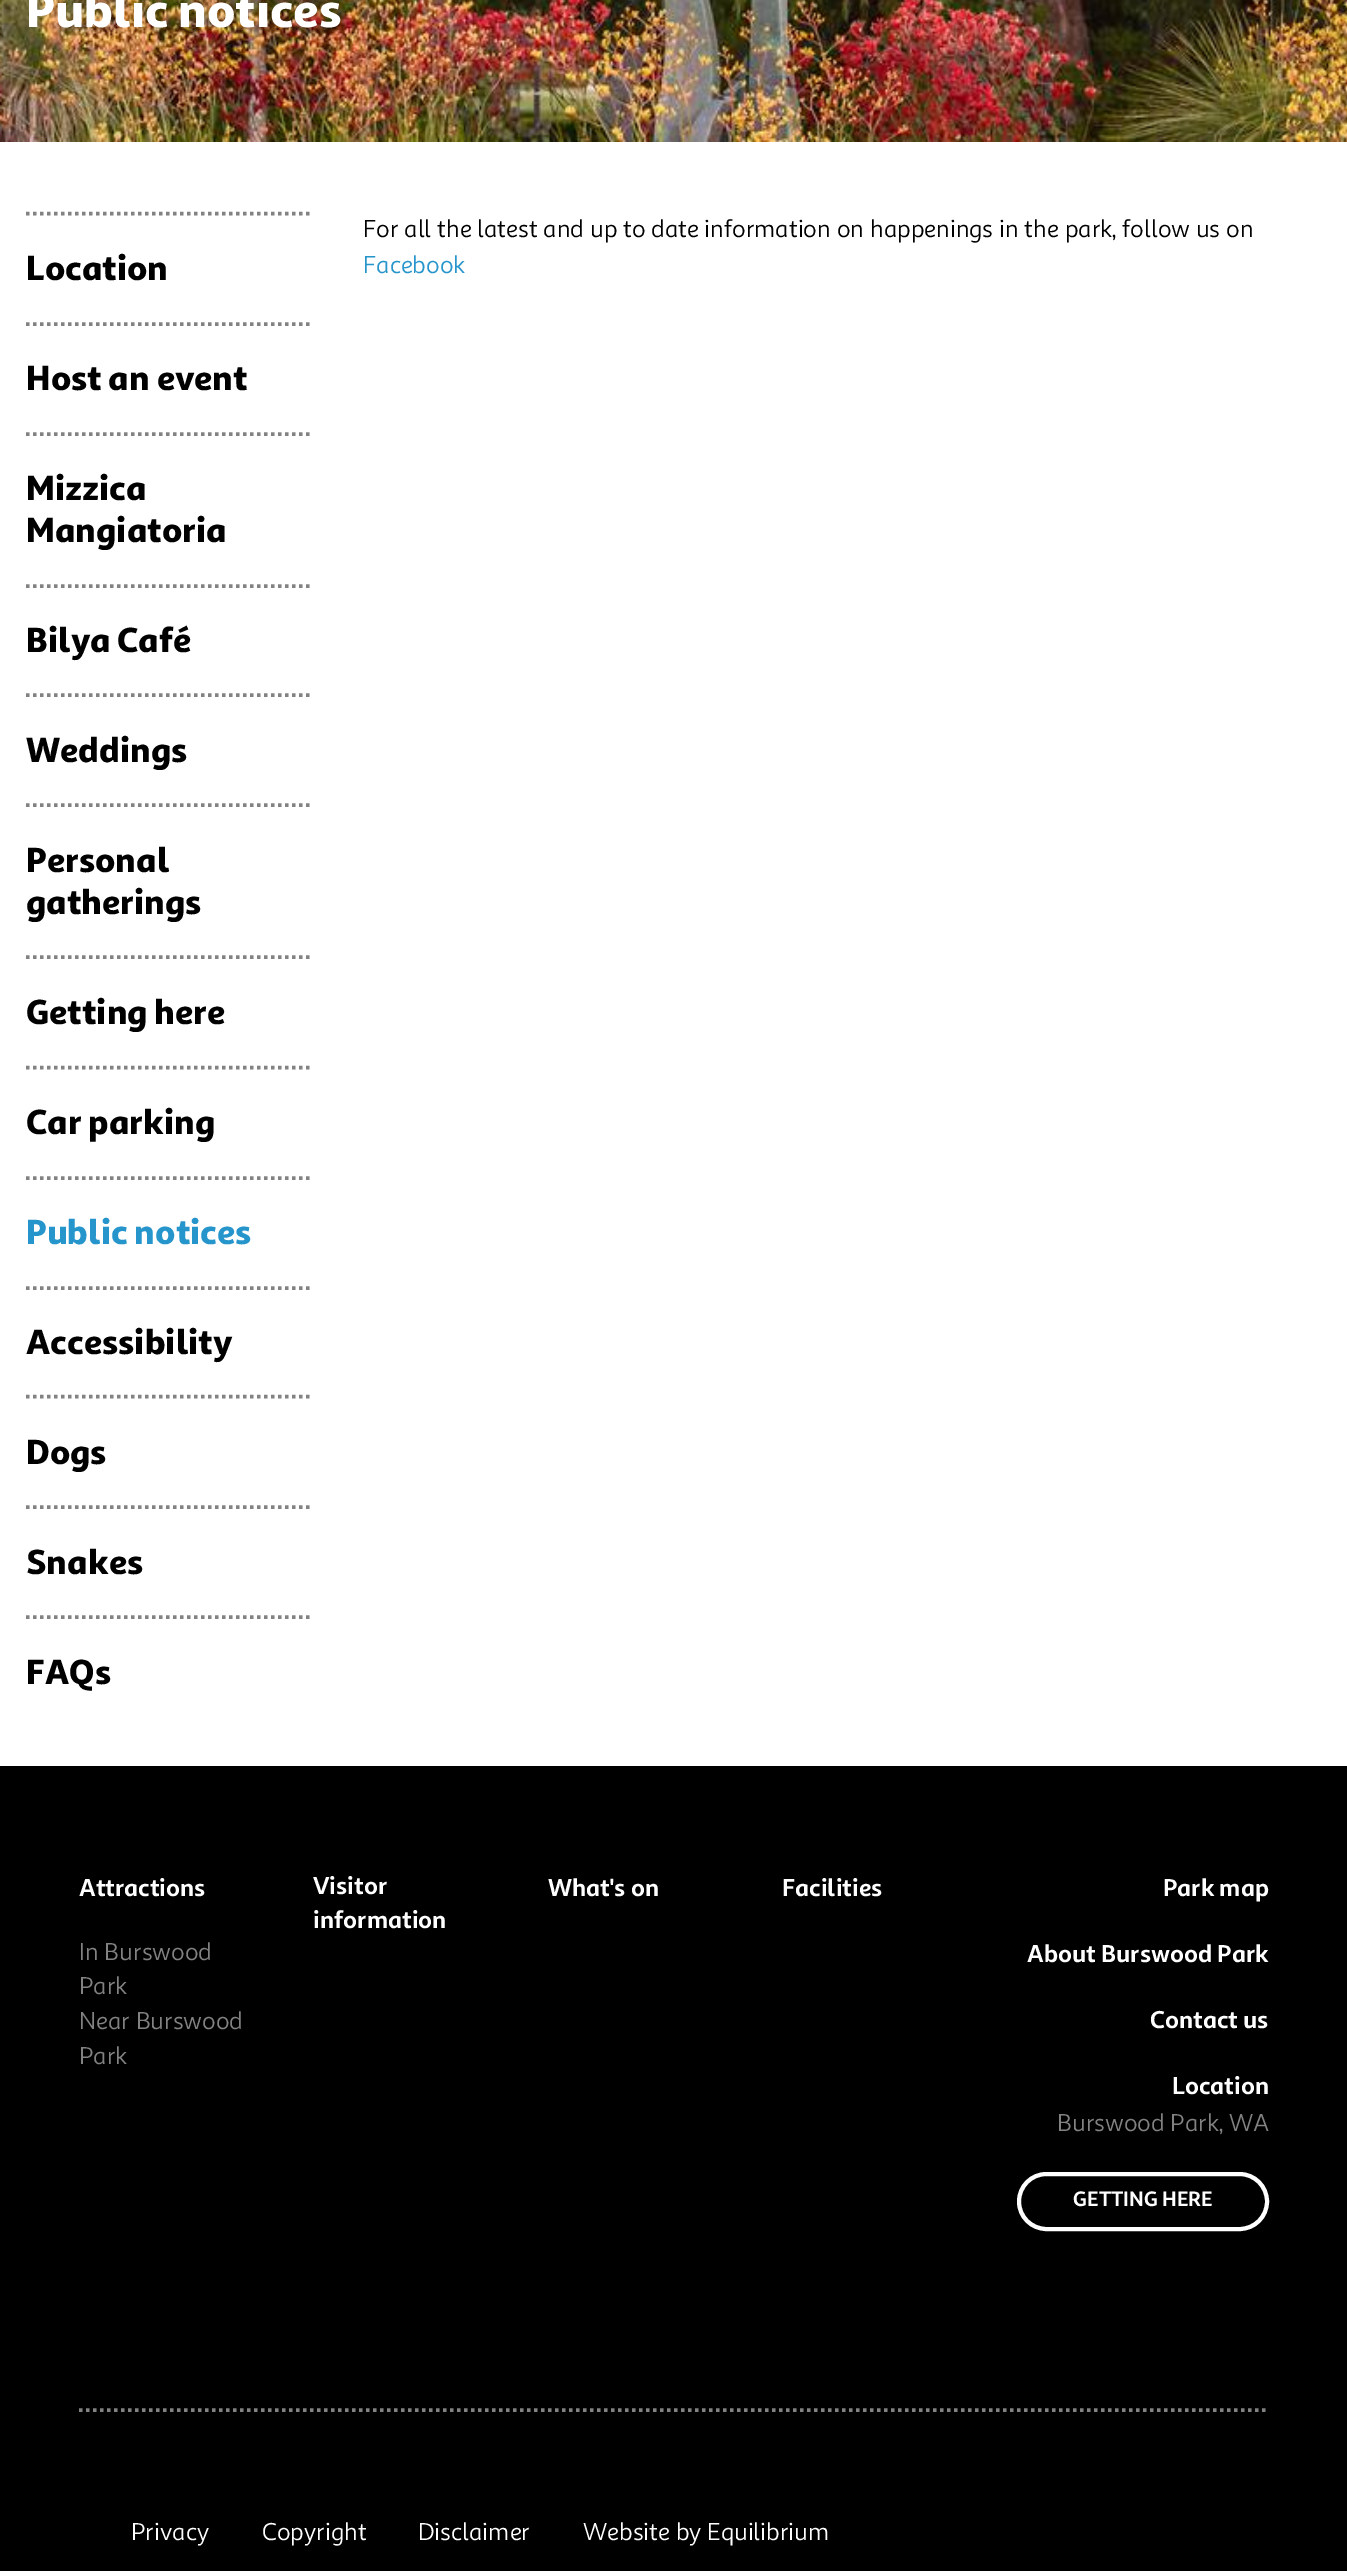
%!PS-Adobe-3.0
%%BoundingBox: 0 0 1347 2571
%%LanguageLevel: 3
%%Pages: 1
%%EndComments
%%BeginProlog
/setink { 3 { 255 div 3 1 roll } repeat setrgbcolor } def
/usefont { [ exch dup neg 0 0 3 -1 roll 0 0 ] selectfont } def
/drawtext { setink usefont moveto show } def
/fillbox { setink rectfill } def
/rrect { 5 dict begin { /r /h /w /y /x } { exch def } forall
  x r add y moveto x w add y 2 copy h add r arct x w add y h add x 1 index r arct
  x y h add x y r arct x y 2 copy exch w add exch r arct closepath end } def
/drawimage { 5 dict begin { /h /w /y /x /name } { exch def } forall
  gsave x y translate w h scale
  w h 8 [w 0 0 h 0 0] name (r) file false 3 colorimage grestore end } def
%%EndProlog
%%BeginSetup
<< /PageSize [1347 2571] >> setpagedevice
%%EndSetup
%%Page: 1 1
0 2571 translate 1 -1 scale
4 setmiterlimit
0 0 1347 2571 255 255 255 fillbox
(assets/img1.rgb) 0 0 1347 142 drawimage
(Public notices) 26 27 /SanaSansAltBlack-Regular 49 255 255 255 drawtext
(For all the latest and up to date information on happenings in the park, follow us on) 363 237 /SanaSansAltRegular-Regular 24.5 0 0 0 drawtext
(Facebook) 363 273 /SanaSansAltRegular-Regular 24.5 38 149 204 drawtext
130 130 130 setink
3.5 setlinewidth
[3.5 3.5] 0 setdash
26 213.5 moveto 311.5 213.5 lineto stroke
(Location) 26 280 /SanaSansAltBlack-Regular 35 0 0 0 drawtext
130 130 130 setink
26 324 moveto 311.5 324 lineto stroke
(Host an event) 26 390 /SanaSansAltBlack-Regular 35 0 0 0 drawtext
130 130 130 setink
26 434 moveto 311.5 434 lineto stroke
(Mizzica) 26 500 /SanaSansAltBlack-Regular 35 0 0 0 drawtext
(Mangiatoria) 26 542 /SanaSansAltBlack-Regular 35 0 0 0 drawtext
130 130 130 setink
26 586 moveto 311.5 586 lineto stroke
(Bilya Café) 26 652 /SanaSansAltBlack-Regular 35 0 0 0 drawtext
130 130 130 setink
26 695 moveto 311.5 695 lineto stroke
(Weddings) 26 762 /SanaSansAltBlack-Regular 35 0 0 0 drawtext
130 130 130 setink
26 805 moveto 311.5 805 lineto stroke
(Personal) 26 872 /SanaSansAltBlack-Regular 35 0 0 0 drawtext
(gatherings) 26 914 /SanaSansAltBlack-Regular 35 0 0 0 drawtext
130 130 130 setink
26 957 moveto 311.5 957 lineto stroke
(Getting here) 26 1024 /SanaSansAltBlack-Regular 35 0 0 0 drawtext
130 130 130 setink
26 1067.5 moveto 311.5 1067.5 lineto stroke
(Car parking) 26 1134 /SanaSansAltBlack-Regular 35 0 0 0 drawtext
130 130 130 setink
26 1178 moveto 311.5 1178 lineto stroke
(Public notices) 26 1244 /SanaSansAltBlack-Regular 35 38 149 204 drawtext
130 130 130 setink
26 1288 moveto 311.5 1288 lineto stroke
(Accessibility) 26 1354 /SanaSansAltBlack-Regular 35 0 0 0 drawtext
130 130 130 setink
26 1396.5 moveto 311.5 1396.5 lineto stroke
(Dogs) 26 1464 /SanaSansAltBlack-Regular 35 0 0 0 drawtext
130 130 130 setink
26 1507 moveto 311.5 1507 lineto stroke
(Snakes) 26 1574 /SanaSansAltBlack-Regular 35 0 0 0 drawtext
130 130 130 setink
26 1617 moveto 311.5 1617 lineto stroke
(FAQs) 26 1684 /SanaSansAltBlack-Regular 35 0 0 0 drawtext
0 1766 1347 805 0 0 0 fillbox
(Attractions) 79 1896 /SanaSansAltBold-Regular 24.5 255 255 255 drawtext
(In Burswood) 79 1960 /SanaSansAltRegular-Regular 24.5 130 130 130 drawtext
(Park) 79 1994 /SanaSansAltRegular-Regular 24.5 130 130 130 drawtext
(Near Burswood) 79 2029 /SanaSansAltRegular-Regular 24.5 130 130 130 drawtext
(Park) 79 2064 /SanaSansAltRegular-Regular 24.5 130 130 130 drawtext
(Visitor) 313 1894 /SanaSansAltBold-Regular 24.5 255 255 255 drawtext
(information) 313 1928 /SanaSansAltBold-Regular 24.5 255 255 255 drawtext
(What's on) 548 1896 /SanaSansAltBold-Regular 24.5 255 255 255 drawtext
(Facilities) 782 1896 /SanaSansAltBold-Regular 24.5 255 255 255 drawtext
(Park map) 1163 1896 /SanaSansAltBold-Regular 24.5 255 255 255 drawtext
(About Burswood Park) 1027 1962 /SanaSansAltBold-Regular 24.5 255 255 255 drawtext
(Contact us) 1150 2028 /SanaSansAltBold-Regular 24.5 255 255 255 drawtext
(Location) 1172 2094 /SanaSansAltBold-Regular 24.5 255 255 255 drawtext
(Burswood Park, WA) 1057 2131 /SanaSansAltRegular-Regular 24.5 130 130 130 drawtext
255 255 255 setink
4 setlinewidth
[] 0 setdash
1019 2174 248 55 27.5 rrect stroke
(GETTING HERE) 1073 2206 /SanaSansAltBold-Regular 21 255 255 255 drawtext
130 130 130 setink
3.5 setlinewidth
[3.5 3.5] 0 setdash
79 2410 moveto 1269 2410 lineto stroke
(Privacy) 131 2540 /SanaSansAltRegular-Regular 24.5 255 255 255 drawtext
(Copyright) 262 2540 /SanaSansAltRegular-Regular 24.5 255 255 255 drawtext
(Disclaimer) 418 2540 /SanaSansAltRegular-Regular 24.5 255 255 255 drawtext
(Website by Equilibrium) 583 2540 /SanaSansAltRegular-Regular 24.5 255 255 255 drawtext
showpage
%%EOF
